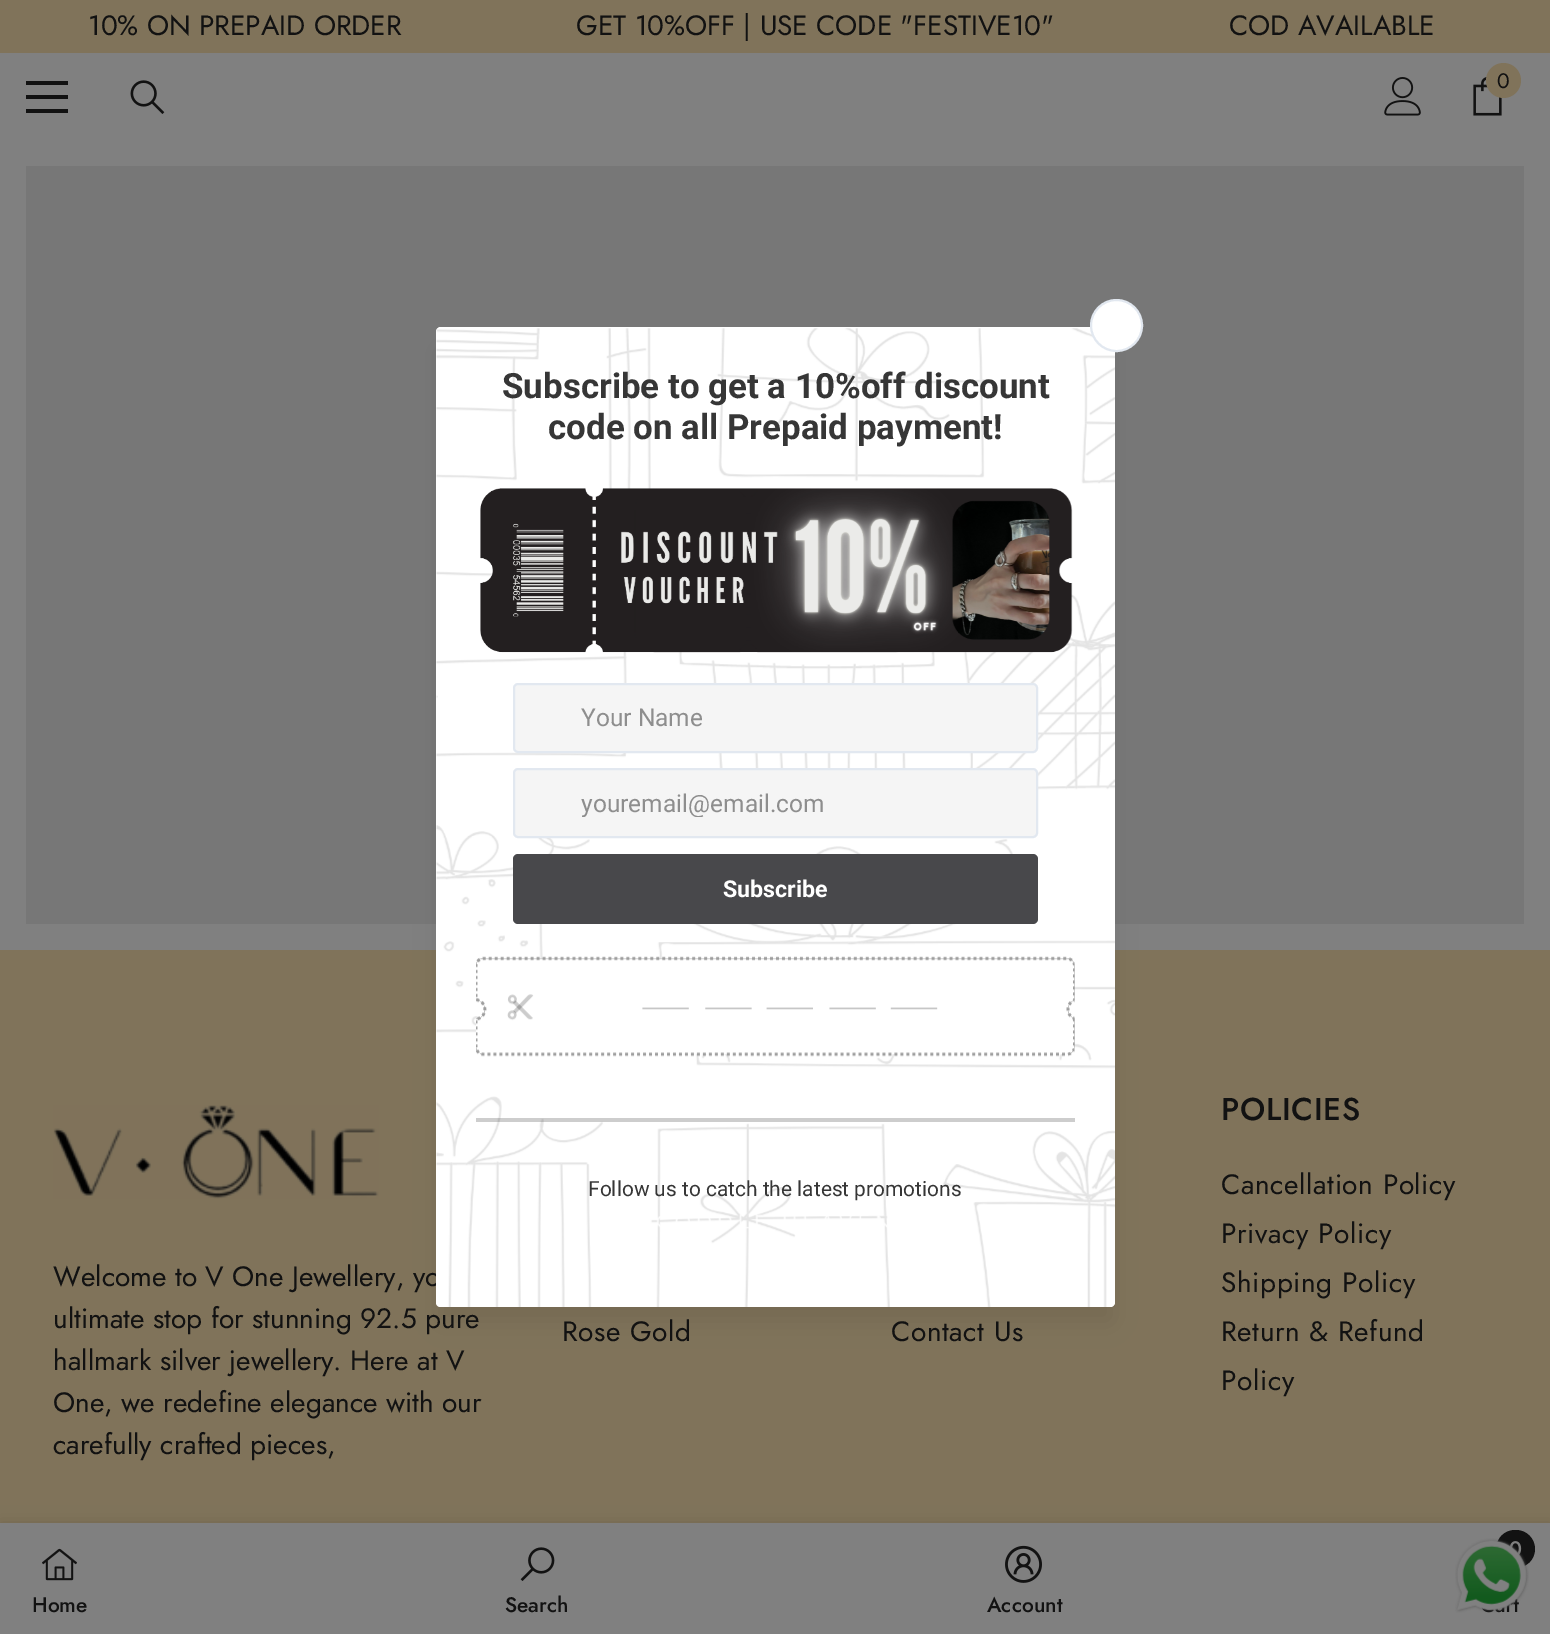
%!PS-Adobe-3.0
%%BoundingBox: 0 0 1550 1634
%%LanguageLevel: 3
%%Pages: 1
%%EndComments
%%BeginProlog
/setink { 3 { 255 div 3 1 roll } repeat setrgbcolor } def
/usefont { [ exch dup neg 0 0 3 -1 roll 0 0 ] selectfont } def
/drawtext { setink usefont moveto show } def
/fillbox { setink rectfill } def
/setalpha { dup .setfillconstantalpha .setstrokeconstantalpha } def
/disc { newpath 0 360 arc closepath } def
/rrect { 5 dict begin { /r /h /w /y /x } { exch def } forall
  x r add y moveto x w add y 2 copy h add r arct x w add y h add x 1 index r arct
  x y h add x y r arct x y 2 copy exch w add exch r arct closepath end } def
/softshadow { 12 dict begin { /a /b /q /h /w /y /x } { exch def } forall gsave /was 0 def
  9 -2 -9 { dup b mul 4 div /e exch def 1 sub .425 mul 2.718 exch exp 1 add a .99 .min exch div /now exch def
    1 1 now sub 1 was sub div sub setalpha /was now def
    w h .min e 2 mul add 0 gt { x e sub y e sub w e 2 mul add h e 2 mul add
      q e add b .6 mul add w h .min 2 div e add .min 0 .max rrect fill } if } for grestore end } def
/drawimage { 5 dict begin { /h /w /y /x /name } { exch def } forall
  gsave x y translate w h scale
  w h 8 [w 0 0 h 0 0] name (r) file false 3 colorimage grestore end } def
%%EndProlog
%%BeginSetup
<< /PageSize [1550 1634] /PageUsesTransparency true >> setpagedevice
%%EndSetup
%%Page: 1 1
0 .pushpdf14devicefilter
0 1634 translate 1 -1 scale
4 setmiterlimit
0 0 1550 1634 128 128 128 fillbox
0 0 1550 53 128 115 90 fillbox
(10% ON PREPAID ORDER) 88 35 /Jost-Regular 28 18 18 18 drawtext
(GET 10%OFF | USE CODE "FESTIVE10") 576 35 /Jost-Regular 28 18 18 18 drawtext
(COD AVAILABLE) 1229 35 /Jost-Regular 28 18 18 18 drawtext
26 95 42 4 18 18 18 fillbox
26 81 42 4 18 18 18 fillbox
26 109 42 4 18 18 18 fillbox
(assets/img1.rgb) 130 80 35 34 drawimage
(assets/img2.rgb) 1384 77 37 39 drawimage
(assets/img3.rgb) 1473 77 29 39 drawimage
128 115 90 setink
1503.5 80.5 17.5 disc fill
(0) 1497 88 /Jost-Regular 21 18 18 18 drawtext
26 166 1498 758 119 119 119 fillbox
0 950 1550 573 128 115 90 fillbox
(assets/img4.rgb) 53 1105 326 94 drawimage
(Welcome to V One Jewellery, yo) 53 1286 /Jost-Regular 28 18 18 18 drawtext
(ultimate stop for stunning 92.5 pure) 53 1328 /Jost-Regular 28 18 18 18 drawtext
(hallmark silver jewellery. Here at V) 53 1370 /Jost-Regular 28 18 18 18 drawtext
(One, we redefine elegance with our) 53 1412 /Jost-Regular 28 18 18 18 drawtext
(carefully crafted pieces,) 53 1454 /Jost-Regular 28 18 18 18 drawtext
562 1341 moveto 0.6 0 (Rose Gold) ashow
891 1341 moveto 0.6 0 (Contact Us) ashow
/Jost-Medium 31.5 usefont
1221 1120 moveto 0.75 0 (POLICIES) ashow
/Jost-Regular 28 usefont
1221 1194 moveto 0.6 0 (Cancellation Policy) ashow
1221 1243 moveto 0.6 0 (Privacy Policy) ashow
1221 1292 moveto 0.6 0 (Shipping Policy) ashow
1221 1341 moveto 0.6 0 (Return & Refund) ashow
1221 1390 moveto 0.6 0 (Policy) ashow
0 0 0 setink
0 1523 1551 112 0 8 0.12 softshadow
0 1523 1550 111 128 128 128 fillbox
(assets/img5.rgb) 42 1548 35 33 drawimage
(Home) 32 1612 /Jost-Medium 21 18 18 18 drawtext
(assets/img6.rgb) 520 1547 35 34 drawimage
(Search) 505 1612 /Jost-Medium 21 18 18 18 drawtext
(assets/img7.rgb) 1005 1545 37 38 drawimage
(Account) 987 1612 /Jost-Medium 21 18 18 18 drawtext
1496 1530 39 38 19 rrect fill
(t) 1513 1612 /Jost-Medium 21 18 18 18 drawtext
0 0 0 setink
441 350 669 970 0 13 0.1 softshadow
gsave
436 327 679 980 rectclip
441 333 669 969 0 17.5 0.12 softshadow
grestore
255 255 255 setink
436 327 679 980 5 rrect fill
(assets/img8.rgb) 436 327 679 980 drawimage
1116.5 325.5 25.5 disc gsave fill grestore
226 232 240 setink
2 setlinewidth
stroke
(Subscribe to get a 10%off discount) 502 398 /Roboto-Bold 34.9 54 54 54 drawtext
(code on all Prepaid payment!) 548 439 /Roboto-Bold 34.9 54 54 54 drawtext
(assets/img9.rgb) 480 488 593 165 drawimage
245 245 245 setink
514 684 523 68 4 rrect gsave fill grestore
226 232 240 setink
stroke
(Your Name) 581 726 /Roboto-Regular 24.5 142 142 142 drawtext
245 245 245 setink
514 769 523 68 4 rrect gsave fill grestore
226 232 240 setink
stroke
gsave
518 789 515 28 rectclip
(youremail@email.com) 581 812 /Roboto-Regular 24.5 142 142 142 drawtext
grestore
72 72 75 setink
513 854 525 70 5 rrect fill
(Subscribe) 723 897 /Roboto-Bold 23.25 255 255 255 drawtext
(assets/img10.rgb) 476 956 599 101 drawimage
0.25 setalpha
476 1118 599 4 54 54 54 fillbox
1 setalpha
(Follow us to catch the latest promotions) 588 1196 /Roboto-Regular 20.9 54 54 54 drawtext
(assets/img11.rgb) 1455 1538 74 75 drawimage
.poppdf14devicefilter showpage
%%EOF
